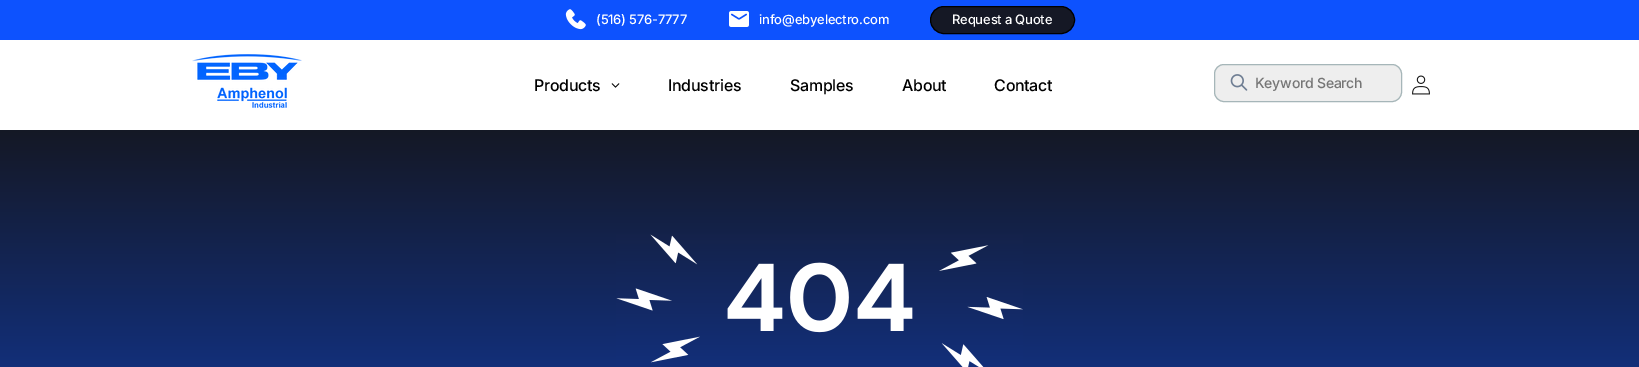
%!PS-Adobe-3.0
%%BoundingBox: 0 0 1639 367
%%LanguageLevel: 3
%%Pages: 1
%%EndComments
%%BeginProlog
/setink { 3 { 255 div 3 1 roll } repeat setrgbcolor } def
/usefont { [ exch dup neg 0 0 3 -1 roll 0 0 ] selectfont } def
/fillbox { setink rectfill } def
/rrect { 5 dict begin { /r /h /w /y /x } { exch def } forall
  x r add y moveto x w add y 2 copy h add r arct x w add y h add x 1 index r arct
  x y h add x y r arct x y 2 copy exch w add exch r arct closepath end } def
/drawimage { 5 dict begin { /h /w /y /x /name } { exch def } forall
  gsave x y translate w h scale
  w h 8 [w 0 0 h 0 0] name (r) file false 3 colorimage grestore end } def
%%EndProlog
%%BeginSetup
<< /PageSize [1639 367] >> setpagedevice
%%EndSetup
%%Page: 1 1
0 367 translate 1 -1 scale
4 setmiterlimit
0 0 1639 367 255 255 255 fillbox
0 0 1639 40 13 82 254 fillbox
(assets/img1.rgb) 565 9 21 21 drawimage
/Inter-Medium 13 usefont
255 255 255 setink
596 24 moveto -0.2 0 (\(516\) 576-7777) ashow
(assets/img2.rgb) 729 11 20 16 drawimage
759 24 moveto -0.2 0 (info@ebyelectro.com) ashow
21 24 37 setink
930.5 6.5 144 27 13.5 rrect gsave fill grestore
0 0 0 setink
stroke
255 255 255 setink
952 24 moveto -0.2 0 (Request a Quote) ashow
(assets/img3.rgb) 192 54 110 54 drawimage
/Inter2-Medium 16 usefont
0 0 0 setink
534 91 moveto -0.2 0 (Products) ashow
(assets/img4.rgb) 611 83 9 5 drawimage
668 91 moveto -0.2 0 (Industries) ashow
790 91 moveto -0.2 0 (Samples) ashow
902 91 moveto -0.2 0 (About) ashow
994 91 moveto -0.2 0 (Contact) ashow
238 238 238 setink
1214 64 188 38 10 rrect fill
(assets/img5.rgb) 1230 74 18 17 drawimage
166 182 185 setink
1214.5 64.5 187 37 9.5 rrect stroke
/Inter-Medium 14 usefont
117 117 117 setink
1255 88 moveto -0.25 0 (Keyword Search) ashow
(assets/img6.rgb) 1412 75 18 20 drawimage
gsave 0 130 moveto 1639 130 lineto 1639 367 lineto 0 367 lineto closepath clip newpath
<< /ShadingType 2 /ColorSpace /DeviceRGB /Coords [820 130 820 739] /Extend [true true] /Function << /FunctionType 2 /Domain [0 1] /C0 [0.082 0.094 0.145] /C1 [0.051 0.322 0.996] /N 1 >> >> shfill grestore
(assets/img7.rgb) 616 234 407 133 drawimage
showpage
%%EOF
